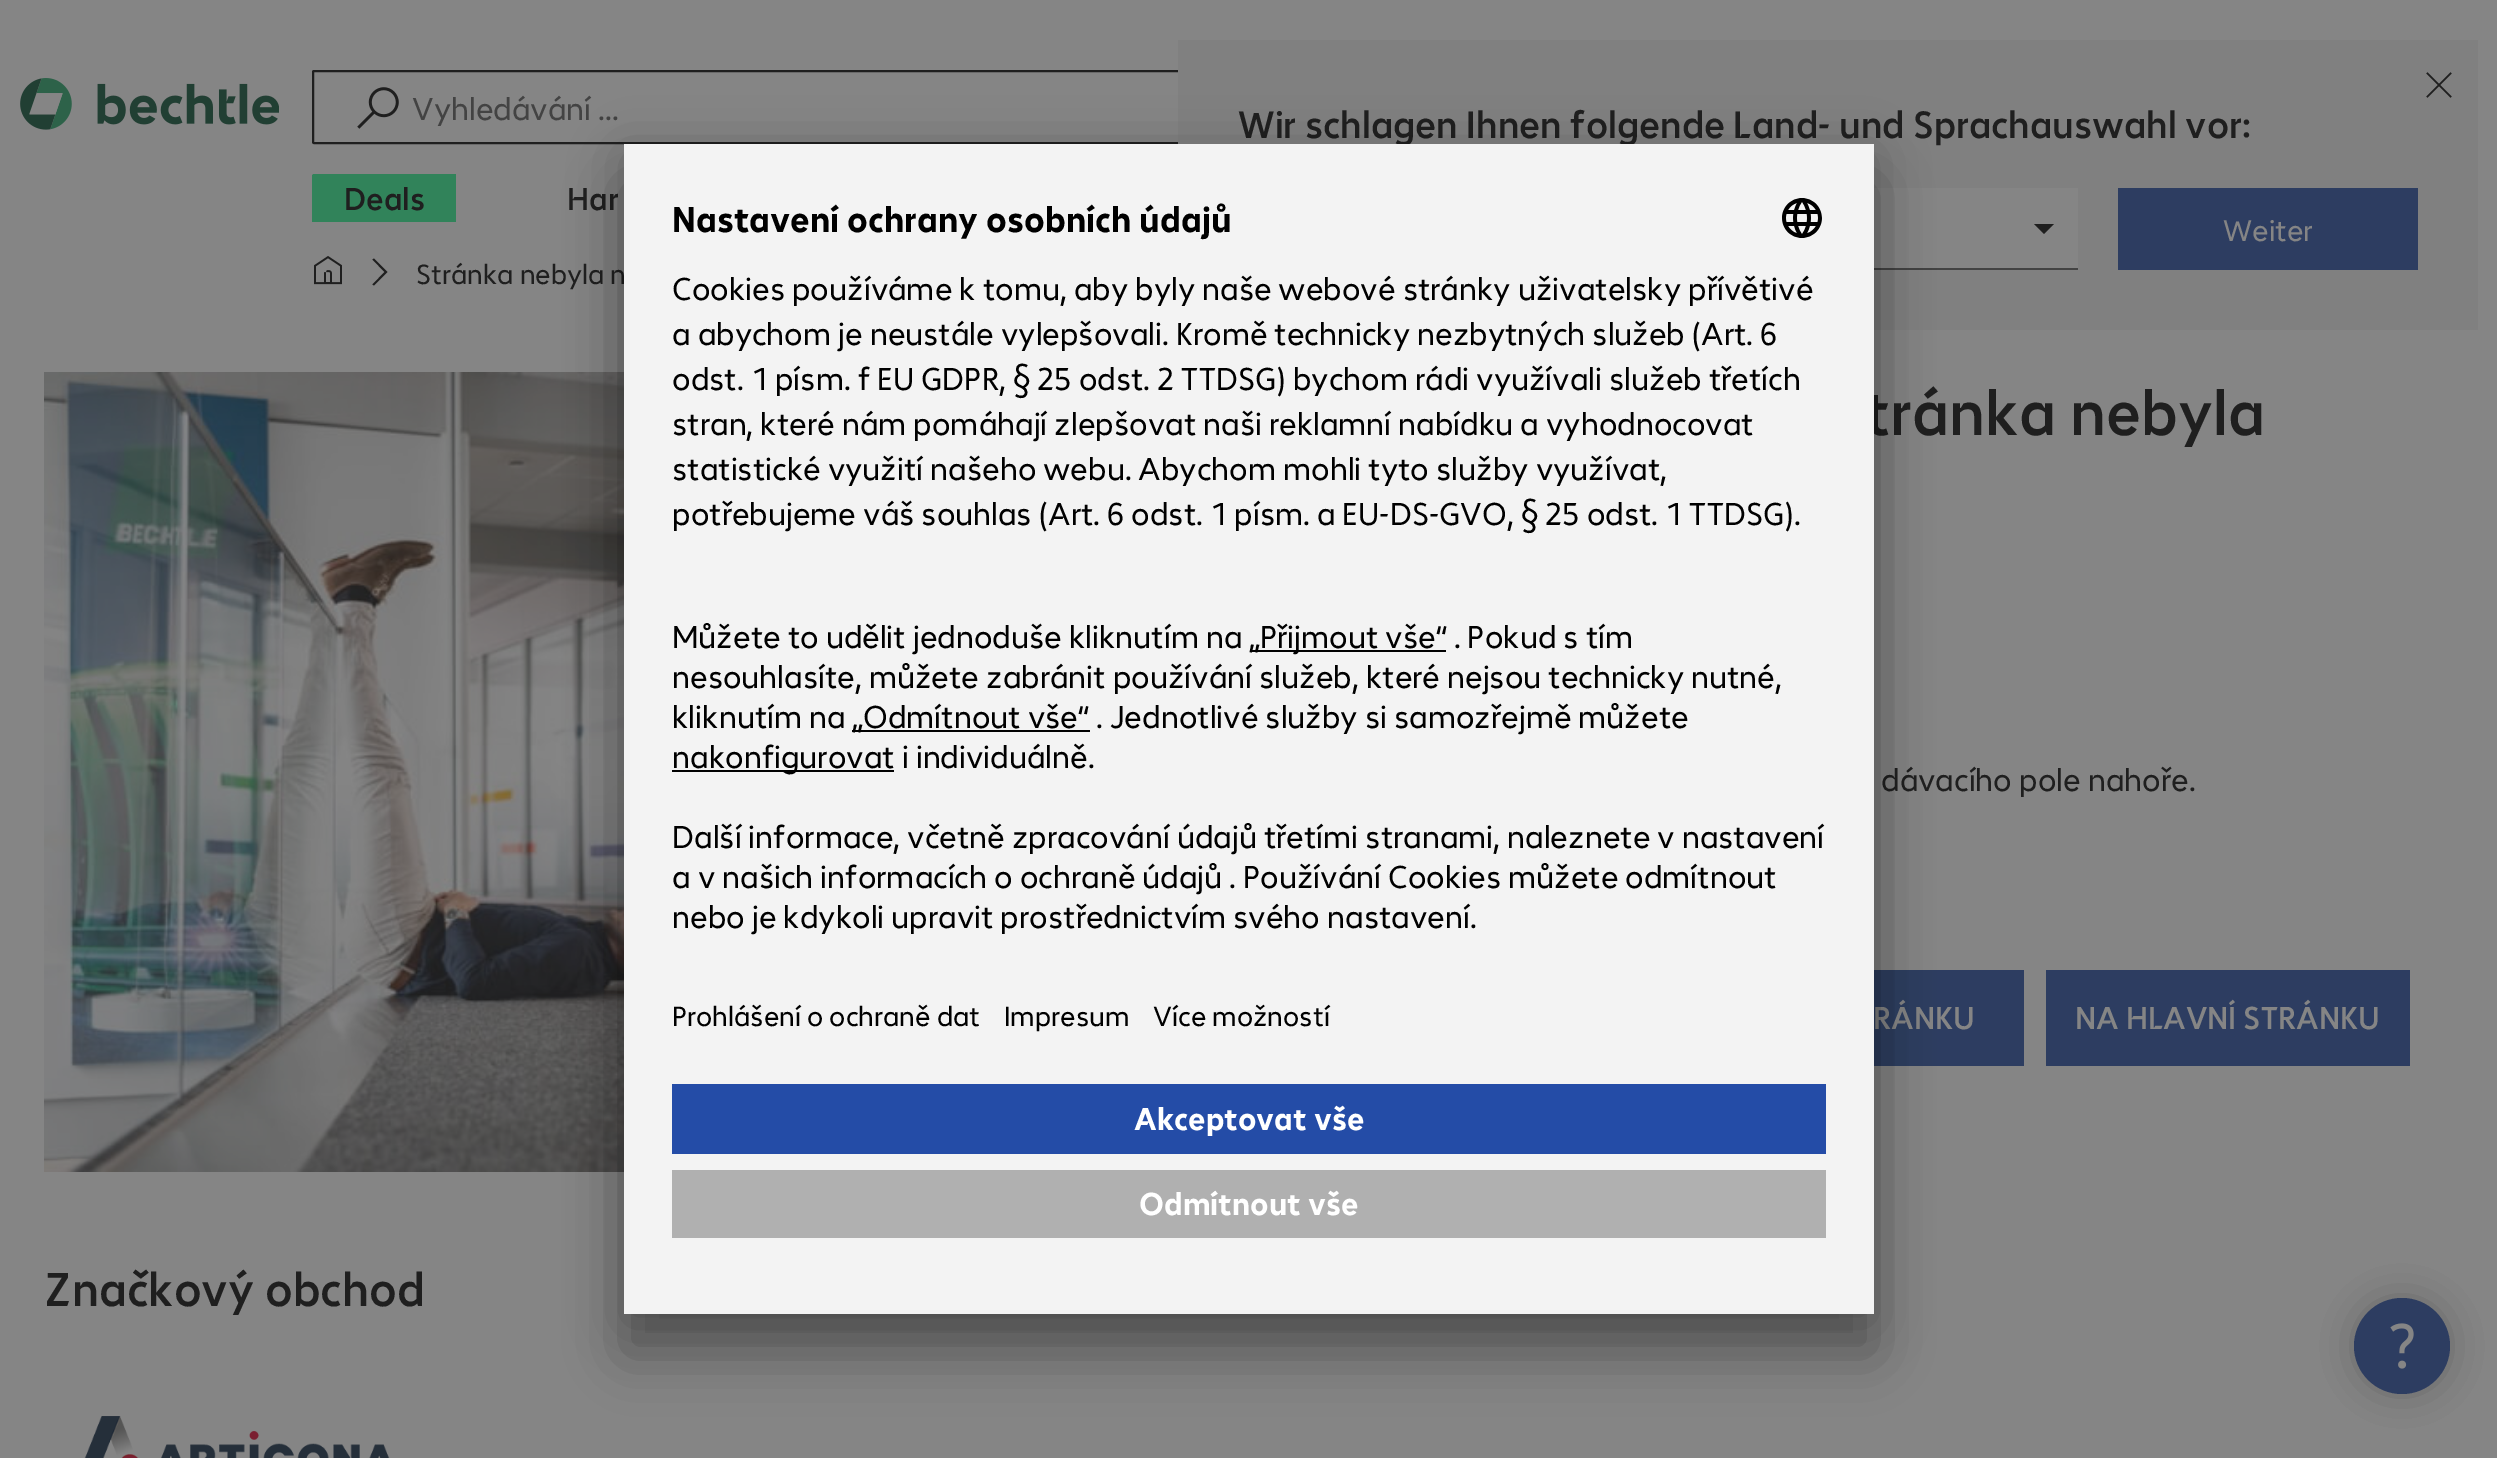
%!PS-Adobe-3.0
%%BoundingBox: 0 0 2497 1458
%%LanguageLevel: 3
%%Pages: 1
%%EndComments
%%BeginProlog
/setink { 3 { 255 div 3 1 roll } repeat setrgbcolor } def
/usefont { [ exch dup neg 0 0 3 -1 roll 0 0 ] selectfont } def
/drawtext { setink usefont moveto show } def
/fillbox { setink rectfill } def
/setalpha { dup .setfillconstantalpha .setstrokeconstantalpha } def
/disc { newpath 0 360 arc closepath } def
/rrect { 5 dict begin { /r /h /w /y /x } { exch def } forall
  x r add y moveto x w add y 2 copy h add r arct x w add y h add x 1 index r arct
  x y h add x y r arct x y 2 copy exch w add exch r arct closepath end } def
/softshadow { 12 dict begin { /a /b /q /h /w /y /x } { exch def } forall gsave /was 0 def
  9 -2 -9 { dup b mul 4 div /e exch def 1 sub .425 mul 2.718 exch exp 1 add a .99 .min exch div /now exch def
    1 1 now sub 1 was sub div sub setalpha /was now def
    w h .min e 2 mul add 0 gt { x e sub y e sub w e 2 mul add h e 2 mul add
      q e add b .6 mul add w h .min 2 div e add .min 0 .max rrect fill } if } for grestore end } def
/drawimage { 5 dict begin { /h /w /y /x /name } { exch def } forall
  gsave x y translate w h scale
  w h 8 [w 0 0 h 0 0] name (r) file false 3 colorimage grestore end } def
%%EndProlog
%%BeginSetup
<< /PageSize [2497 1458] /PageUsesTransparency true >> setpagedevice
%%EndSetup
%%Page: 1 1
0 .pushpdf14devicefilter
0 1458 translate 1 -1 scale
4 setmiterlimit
0 0 2497 1458 133 133 133 fillbox
(assets/img1.rgb) 20 78 259 52 drawimage
31 31 31 setink
2 setlinewidth
313 71 1796 72 1 rrect stroke
(assets/img2.rgb) 357 87 42 42 drawimage
(Vyhledávání ...) 412 120 /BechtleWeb-Regular 32 67 67 67 drawtext
49 131 90 setink
314 174 moveto 456 174 lineto 456 222 lineto 312 222 lineto 312 176 lineto 312 175 313 174 314 174 curveto closepath fill
(Deals) 344 210 /BechtleWeb-Medium 32 31 31 31 drawtext
(Har) 567 210 /BechtleWeb-Medium 32 31 31 31 drawtext
(assets/img3.rgb) 314 256 28 29 drawimage
374 285.5 moveto 372.5 284.5 lineto 384.5 272 lineto 372.5 259.5 lineto 374 258.5 lineto 387.5 272 lineto closepath fill
(Stránka nebyla n) 416 284 /BechtleWeb-Regular 28 31 31 31 drawtext
1178 40 1300 290 128 128 128 fillbox
(assets/img4.rgb) 2426 72 26 26 drawimage
(Wir schlagen Ihnen folgende Land- und Sprachauswahl vor:) 1238 138 /BechtleWeb-Medium 38.4 31 31 31 drawtext
1874 188 204 80 133 133 133 fillbox
1874 268 204 2 67 67 67 fillbox
31 31 31 setink
2034 224 moveto 2054 224 lineto 2044 234 lineto closepath fill
2118 188 300 82 45 61 97 fillbox
(Weiter) 2223 241 /BechtleWeb-Regular 30 133 133 133 drawtext
(assets/img5.rgb) 44 372 580 800 drawimage
(tránka nebyla) 1864 435 /BechtleWeb-Medium 64 31 31 31 drawtext
(dávacího pole nahoře.) 1881 791 /BechtleWeb-Regular 32 31 31 31 drawtext
1874 970 150 96 45 61 97 fillbox
(RÁNKU) 1873 1029 /BechtleWeb-Medium 32 133 133 133 drawtext
2046 970 364 96 45 61 97 fillbox
(NA HLAVNÍ STRÁNKU) 2075 1029 /BechtleWeb-Medium 32 133 133 133 drawtext
(Značkový obchod) 44 1306 /BechtleWeb-Medium 48 31 31 31 drawtext
(assets/img6.rgb) 84 1416 306 42 drawimage
0 0 0 setink
624 184 1250 1170 0 28 0.3 softshadow
624 154 1250 1170 0 26 0.22 softshadow
624 144 1250 1170 243 243 243 fillbox
(Nastavení ochrany osobních údajů) 672 232 /BechtleWeb-Bold 36 0 0 0 drawtext
(assets/img7.rgb) 1782 198 40 40 drawimage
(Cookies používáme k tomu, aby byly naše webové stránky uživatelsky přívětivé) 672 300 /BechtleWeb-Regular 32 0 0 0 drawtext
(a abychom je neustále vylepšovali. Kromě technicky nezbytných služeb \(Art. 6) 672 345 /BechtleWeb-Regular 32 0 0 0 drawtext
(odst. 1 písm. f EU GDPR, § 25 odst. 2 TTDSG\) bychom rádi využívali služeb třetích) 672 390 /BechtleWeb-Regular 32 0 0 0 drawtext
(stran, které nám pomáhají zlepšovat naši reklamní nabídku a vyhodnocovat) 672 435 /BechtleWeb-Regular 32 0 0 0 drawtext
(statistické využití našeho webu. Abychom mohli tyto služby využívat,) 672 480 /BechtleWeb-Regular 32 0 0 0 drawtext
(potřebujeme váš souhlas \(Art. 6 odst. 1 písm. a EU-DS-GVO, § 25 odst. 1 TTDSG\).) 672 525 /BechtleWeb-Regular 32 0 0 0 drawtext
(Můžete to udělit jednoduše kliknutím na) 672 648 /BechtleWeb-Regular 32 0 0 0 drawtext
1250 650 196 2 0 0 0 fillbox
(„Přijmout vše“ . Pokud s tím) 1249 648 /BechtleWeb-Regular 32 0 0 0 drawtext
(nesouhlasíte, můžete zabránit používání služeb, které nejsou technicky nutné,) 672 688 /BechtleWeb-Regular 32 0 0 0 drawtext
(kliknutím na) 672 728 /BechtleWeb-Regular 32 0 0 0 drawtext
852 730 238 2 0 0 0 fillbox
(„Odmítnout vše“ . Jednotlivé služby si samozřejmě můžete) 852 728 /BechtleWeb-Regular 32 0 0 0 drawtext
672 770 222 2 0 0 0 fillbox
(nakonfigurovat i individuálně.) 672 768 /BechtleWeb-Regular 32 0 0 0 drawtext
(Další informace, včetně zpracování údajů třetími stranami, naleznete v nastavení) 672 848 /BechtleWeb-Regular 32 0 0 0 drawtext
(a v našich informacích o ochraně údajů . Používání Cookies můžete odmítnout) 672 888 /BechtleWeb-Regular 32 0 0 0 drawtext
(nebo je kdykoli upravit prostřednictvím svého nastavení.) 672 928 /BechtleWeb-Regular 32 0 0 0 drawtext
(Prohlášení o ochraně dat) 672 1026 /BechtleWeb-Regular 28 0 0 0 drawtext
(Impresum) 1004 1026 /BechtleWeb-Regular 28 0 0 0 drawtext
(Více možností) 1153 1026 /BechtleWeb-Regular 28 0 0 0 drawtext
672 1084 1154 70 36 76 167 fillbox
(Akceptovat vše) 1134 1130 /BechtleWeb-Bold 32 255 255 255 drawtext
672 1170 1154 68 176 176 176 fillbox
(Odmítnout vše) 1139 1215 /BechtleWeb-Bold 32 255 255 255 drawtext
31 37 35 setink
2354 1298 96 96 48 20 0.16 softshadow
2354 1298 96 96 48 20 0.16 softshadow
45 61 97 setink
2402 1346 48 disc fill
(assets/img8.rgb) 2390 1323 24 46 drawimage
.poppdf14devicefilter showpage
%%EOF
